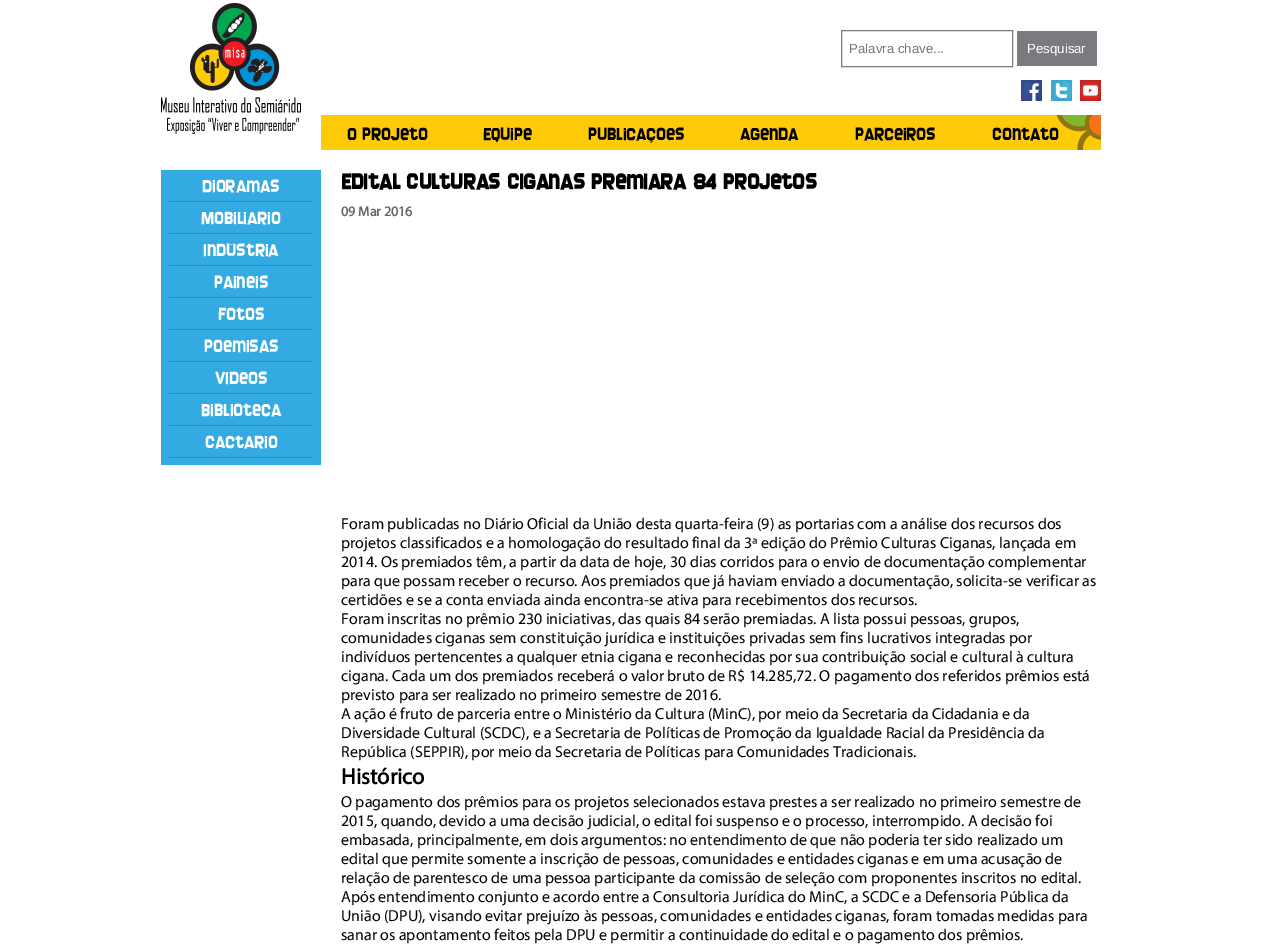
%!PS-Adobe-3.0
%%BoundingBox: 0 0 1262 949
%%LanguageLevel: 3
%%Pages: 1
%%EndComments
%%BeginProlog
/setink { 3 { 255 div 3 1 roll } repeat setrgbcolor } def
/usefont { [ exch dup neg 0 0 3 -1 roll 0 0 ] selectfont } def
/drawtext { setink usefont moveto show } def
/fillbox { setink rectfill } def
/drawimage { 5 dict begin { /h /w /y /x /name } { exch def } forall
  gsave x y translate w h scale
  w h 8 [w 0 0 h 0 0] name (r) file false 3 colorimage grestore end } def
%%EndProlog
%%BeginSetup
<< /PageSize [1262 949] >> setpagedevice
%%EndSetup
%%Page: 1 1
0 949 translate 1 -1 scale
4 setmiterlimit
0 0 1262 949 255 255 255 fillbox
(assets/img1.rgb) 161 3 140 131 drawimage
121 123 126 setink
841.5 30.5 171 36 rectstroke
(Palavra chave...) 849 53 /LiberationSans-Regular 13.25 117 117 117 drawtext
1017 31 80 35 121 123 126 fillbox
(Pesquisar) 1027 53 /LiberationSans-Regular 13.25 255 255 255 drawtext
(assets/img2.rgb) 1021 80 80 21 drawimage
321 115 780 35 255 203 8 fillbox
(assets/img3.rgb) 1056 115 45 35 drawimage
(O Projeto) 347 140 /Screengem-Regular 16 0 0 0 drawtext
(Equipe) 483 140 /Screengem-Regular 16 0 0 0 drawtext
(Publicações) 588 140 /Screengem-Regular 16 0 0 0 drawtext
(Agenda) 740 140 /Screengem-Regular 16 0 0 0 drawtext
(Parceiros) 855 140 /Screengem-Regular 16 0 0 0 drawtext
(Contato) 992 140 /Screengem-Regular 16 0 0 0 drawtext
161 170 160 295 51 170 225 fillbox
169 201 144 1 5 151 219 fillbox
(Dioramas) 202 192 /Screengem-Regular 16 255 255 255 drawtext
169 233 144 1 5 151 219 fillbox
(Mobiliário) 201 224 /Screengem-Regular 16 255 255 255 drawtext
169 265 144 1 5 151 219 fillbox
(Indústria) 203 256 /Screengem-Regular 16 255 255 255 drawtext
169 297 144 1 5 151 219 fillbox
(Painéis) 214 288 /Screengem-Regular 16 255 255 255 drawtext
169 329 144 1 5 151 219 fillbox
(Fotos) 218 320 /Screengem-Regular 16 255 255 255 drawtext
169 361 144 1 5 151 219 fillbox
(Poemisas) 204 352 /Screengem-Regular 16 255 255 255 drawtext
169 393 144 1 5 151 219 fillbox
(Vídeos) 215 384 /Screengem-Regular 16 255 255 255 drawtext
169 425 144 1 5 151 219 fillbox
(Biblioteca) 201 416 /Screengem-Regular 16 255 255 255 drawtext
169 457 144 1 5 151 219 fillbox
(Cactário) 205 448 /Screengem-Regular 16 255 255 255 drawtext
(Edital Culturas Ciganas premiará 84 projetos) 341 189 /Screengem-Bold 20 0 0 0 drawtext
(09 Mar 2016) 341 216 /Myriad-Bold 14 102 102 102 drawtext
(Foram publicadas no Diário Oficial da União desta quarta-feira \(9\) as portarias com a análise dos recursos dos) 341 529 /Myriad-Regular 16 0 0 0 drawtext
(projetos classificados e a homologação do resultado final da 3ª edição do Prêmio Culturas Ciganas, lançada em) 341 548 /Myriad-Regular 16 0 0 0 drawtext
(2014. Os premiados têm, a partir da data de hoje, 30 dias corridos para o envio de documentação complementar) 341 567 /Myriad-Regular 16 0 0 0 drawtext
(para que possam receber o recurso. Aos premiados que já haviam enviado a documentação, solicita-se verificar as) 341 586 /Myriad-Regular 16 0 0 0 drawtext
(certidões e se a conta enviada ainda encontra-se ativa para recebimentos dos recursos.) 341 605 /Myriad-Regular 16 0 0 0 drawtext
(Foram inscritas no prêmio 230 iniciativas, das quais 84 serão premiadas. A lista possui pessoas, grupos,) 341 624 /Myriad-Regular 16 0 0 0 drawtext
(comunidades ciganas sem constituição jurídica e instituições privadas sem fins lucrativos integradas por) 341 643 /Myriad-Regular 16 0 0 0 drawtext
(indivíduos pertencentes a qualquer etnia cigana e reconhecidas por sua contribuição social e cultural à cultura) 341 662 /Myriad-Regular 16 0 0 0 drawtext
(cigana. Cada um dos premiados receberá o valor bruto de R$ 14.285,72. O pagamento dos referidos prêmios está) 341 681 /Myriad-Regular 16 0 0 0 drawtext
(previsto para ser realizado no primeiro semestre de 2016.) 341 700 /Myriad-Regular 16 0 0 0 drawtext
(A ação é fruto de parceria entre o Ministério da Cultura \(MinC\), por meio da Secretaria da Cidadania e da) 341 719 /Myriad-Regular 16 0 0 0 drawtext
(Diversidade Cultural \(SCDC\), e a Secretaria de Políticas de Promoção da Igualdade Racial da Presidência da) 341 738 /Myriad-Regular 16 0 0 0 drawtext
(República \(SEPPIR\), por meio da Secretaria de Políticas para Comunidades Tradicionais.) 341 757 /Myriad-Regular 16 0 0 0 drawtext
(Histórico) 341 784 /Myriad-Bold 22.5 0 0 0 drawtext
(O pagamento dos prêmios para os projetos selecionados estava prestes a ser realizado no primeiro semestre de) 341 807 /Myriad-Regular 16 0 0 0 drawtext
(2015, quando, devido a uma decisão judicial, o edital foi suspenso e o processo, interrompido. A decisão foi) 341 826 /Myriad-Regular 16 0 0 0 drawtext
(embasada, principalmente, em dois argumentos: no entendimento de que não poderia ter sido realizado um) 341 845 /Myriad-Regular 16 0 0 0 drawtext
(edital que permite somente a inscrição de pessoas, comunidades e entidades ciganas e em uma acusação de) 341 864 /Myriad-Regular 16 0 0 0 drawtext
(relação de parentesco de uma pessoa participante da comissão de seleção com proponentes inscritos no edital.) 341 883 /Myriad-Regular 16 0 0 0 drawtext
(Após entendimento conjunto e acordo entre a Consultoria Jurídica do MinC, a SCDC e a Defensoria Pública da) 341 902 /Myriad-Regular 16 0 0 0 drawtext
(União \(DPU\), visando evitar prejuízo às pessoas, comunidades e entidades ciganas, foram tomadas medidas para) 341 921 /Myriad-Regular 16 0 0 0 drawtext
(sanar os apontamento feitos pela DPU e permitir a continuidade do edital e o pagamento dos prêmios.) 341 940 /Myriad-Regular 16 0 0 0 drawtext
showpage
%%EOF
